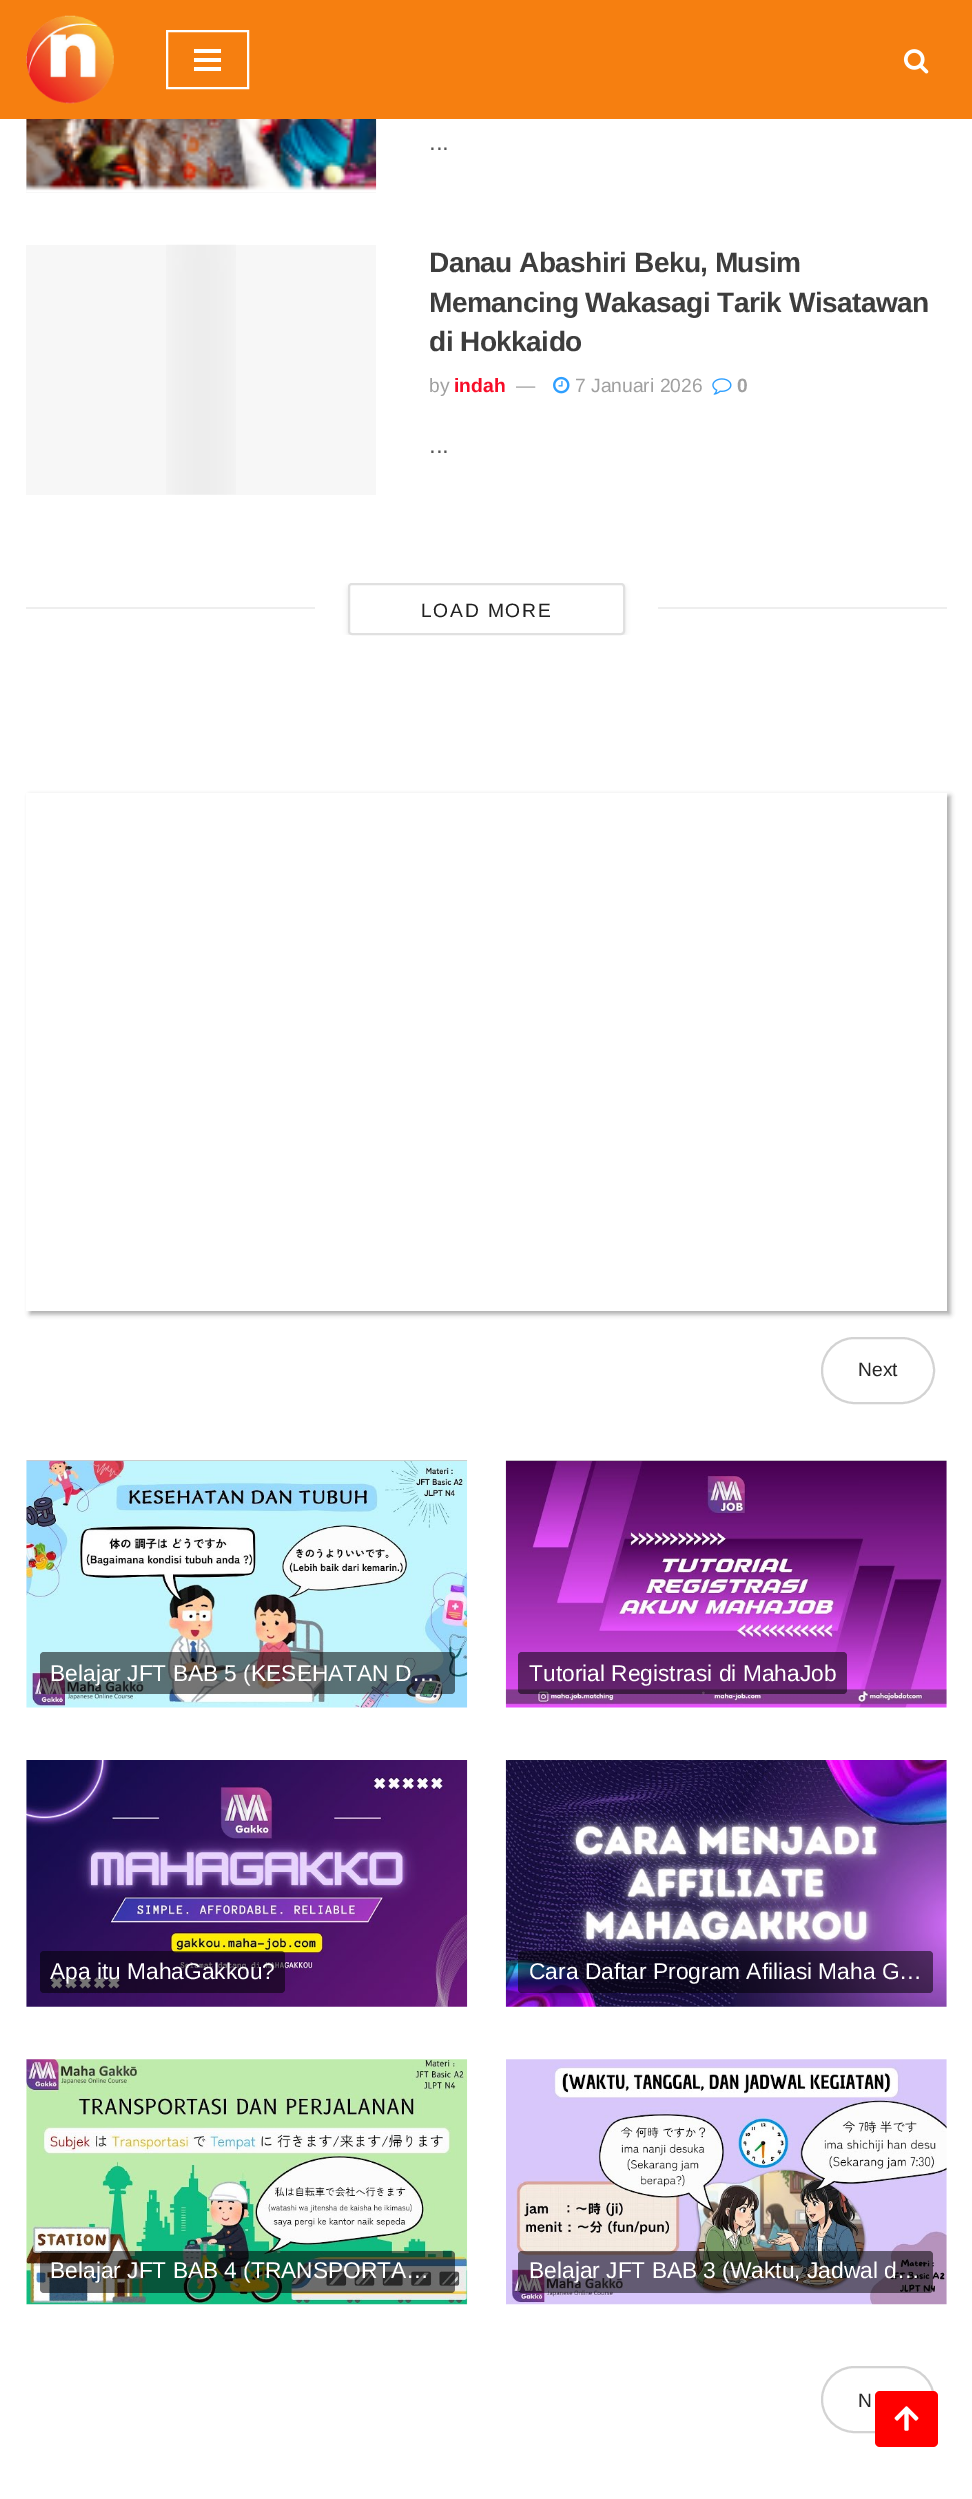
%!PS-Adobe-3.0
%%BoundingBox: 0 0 972 2499
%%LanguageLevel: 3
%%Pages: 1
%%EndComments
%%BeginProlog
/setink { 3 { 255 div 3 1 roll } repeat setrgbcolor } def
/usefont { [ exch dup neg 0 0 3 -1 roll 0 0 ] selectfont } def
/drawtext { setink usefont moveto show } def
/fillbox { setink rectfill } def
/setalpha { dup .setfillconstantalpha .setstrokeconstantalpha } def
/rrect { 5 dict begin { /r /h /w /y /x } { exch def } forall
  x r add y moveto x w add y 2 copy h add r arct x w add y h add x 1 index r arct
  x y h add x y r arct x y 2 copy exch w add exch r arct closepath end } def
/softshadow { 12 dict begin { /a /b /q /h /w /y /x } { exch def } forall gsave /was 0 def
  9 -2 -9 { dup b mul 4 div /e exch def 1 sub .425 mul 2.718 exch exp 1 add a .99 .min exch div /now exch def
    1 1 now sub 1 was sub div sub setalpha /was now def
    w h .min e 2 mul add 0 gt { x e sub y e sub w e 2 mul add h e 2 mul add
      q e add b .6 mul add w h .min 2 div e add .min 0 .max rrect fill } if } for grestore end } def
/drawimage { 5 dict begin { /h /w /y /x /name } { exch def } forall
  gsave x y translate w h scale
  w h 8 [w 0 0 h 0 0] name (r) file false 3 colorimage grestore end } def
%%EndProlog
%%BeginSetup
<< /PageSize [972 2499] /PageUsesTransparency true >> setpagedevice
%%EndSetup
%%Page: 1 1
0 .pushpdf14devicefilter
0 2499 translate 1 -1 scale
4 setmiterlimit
0 0 972 2499 255 255 255 fillbox
0 0 972 119 246 127 16 fillbox
(assets/img1.rgb) 26 15 88 89 drawimage
255 255 255 setink
2 setlinewidth
167 31 81 57 rectstroke
194 49 27 4 255 255 255 fillbox
194 58 27 4 255 255 255 fillbox
194 67 27 4 255 255 255 fillbox
(assets/img2.rgb) 903 49 26 25 drawimage
26 119 350 74 247 247 247 fillbox
(assets/img3.rgb) 26 119 351 73 drawimage
(...) 429 150 /LiberationSans-Regular 24 86 86 86 drawtext
26 245 350 250 247 247 247 fillbox
(assets/img4.rgb) 166 244 70 251 drawimage
/LiberationSans-Bold 28 usefont
61 61 61 setink
429 272 moveto -0.55 0 (Danau Abashiri Beku, Musim) ashow
429 312 moveto -0.55 0 (Memancing Wakasagi Tarik Wisatawan) ashow
429 351 moveto -0.55 0 (di Hokkaido) ashow
(by) 429 392 /LiberationSans-Regular 19.25 160 160 160 drawtext
(indah) 454 392 /LiberationSans-Bold 19.25 247 13 40 drawtext
(—) 516 392 /LiberationSans-Regular 19.25 160 160 160 drawtext
(assets/img5.rgb) 553 376 17 18 drawimage
(7 Januari 2026) 575 392 /LiberationSans-Regular 19.25 160 160 160 drawtext
(assets/img6.rgb) 712 378 20 17 drawimage
(0) 737 392 /LiberationSans-Bold 19.25 160 160 160 drawtext
(...) 429 453 /LiberationSans-Regular 24 86 86 86 drawtext
gsave
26 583 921 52 rectclip
0 0 0 setink
348 585 277 52 4 2.5 0.1 softshadow
grestore
255 255 255 setink
349 584 275 50 3 rrect gsave fill grestore
224 224 224 setink
stroke
26 607 289 2 238 238 238 fillbox
/LiberationSans-Regular 19.25 usefont
33 33 33 setink
421 617 moveto 1.75 0 (LOAD MORE) ashow
658 607 289 2 238 238 238 fillbox
gsave
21 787 moveto 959 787 lineto 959 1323 lineto 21 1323 lineto closepath 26 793 moveto 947 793 lineto 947 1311 lineto 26 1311 lineto closepath eoclip newpath
10 10 10 setink
30 796 920 518 0 2.5 0.35 softshadow
grestore
211 211 211 setink
822 1338 112 65 32.5 rrect stroke
(Next) 858 1376 /LiberationSans-Regular 19.25 39 39 39 drawtext
(assets/img7.rgb) 26 1460 442 248 drawimage
0.54 setalpha
0 0 0 setink
40 1652 415 42 4 rrect fill
1 setalpha
(Belajar JFT BAB 5 \(KESEHATAN D…) 50 1681 /LiberationSans-Regular 22.75 255 255 255 drawtext
(assets/img8.rgb) 505 1460 442 248 drawimage
0.54 setalpha
0 0 0 setink
518 1652 329 42 4 rrect fill
1 setalpha
(Tutorial Registrasi di MahaJob) 529 1681 /LiberationSans-Regular 22.75 255 255 255 drawtext
(assets/img9.rgb) 26 1760 442 247 drawimage
0.54 setalpha
0 0 0 setink
40 1951 245 42 4 rrect fill
1 setalpha
(Apa itu MahaGakkou?) 50 1979 /LiberationSans-Regular 22.75 255 255 255 drawtext
(assets/img10.rgb) 505 1760 442 247 drawimage
0.54 setalpha
0 0 0 setink
518 1951 415 42 4 rrect fill
1 setalpha
(Cara Daftar Program Afiliasi Maha G…) 529 1979 /LiberationSans-Regular 22.75 255 255 255 drawtext
(assets/img11.rgb) 26 2059 442 246 drawimage
0.54 setalpha
0 0 0 setink
40 2251 415 42 4 rrect fill
1 setalpha
(Belajar JFT BAB 4 \(TRANSPORTA…) 50 2278 /LiberationSans-Regular 22.75 255 255 255 drawtext
(assets/img12.rgb) 506 2059 441 246 drawimage
0.54 setalpha
0 0 0 setink
518 2251 415 42 4 rrect fill
1 setalpha
(Belajar JFT BAB 3 \(Waktu, Jadwal d…) 529 2278 /LiberationSans-Regular 22.75 255 255 255 drawtext
211 211 211 setink
822 2367 112 65 32.5 rrect stroke
(N) 858 2407 /LiberationSans-Regular 19.25 39 39 39 drawtext
255 0 0 setink
875 2391 63 56 5 rrect fill
(assets/img13.rgb) 894 2406 25 25 drawimage
.poppdf14devicefilter showpage
%%EOF
